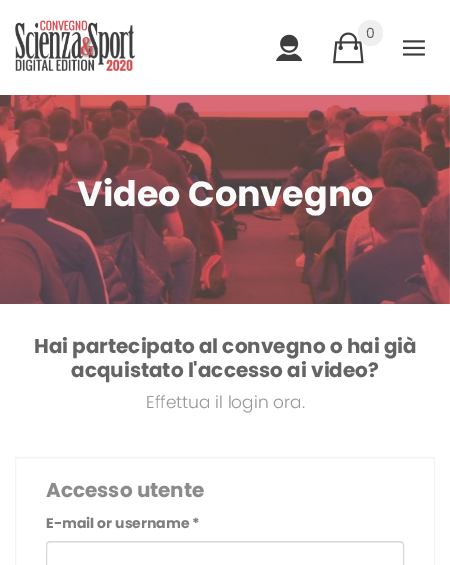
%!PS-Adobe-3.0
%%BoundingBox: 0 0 450 565
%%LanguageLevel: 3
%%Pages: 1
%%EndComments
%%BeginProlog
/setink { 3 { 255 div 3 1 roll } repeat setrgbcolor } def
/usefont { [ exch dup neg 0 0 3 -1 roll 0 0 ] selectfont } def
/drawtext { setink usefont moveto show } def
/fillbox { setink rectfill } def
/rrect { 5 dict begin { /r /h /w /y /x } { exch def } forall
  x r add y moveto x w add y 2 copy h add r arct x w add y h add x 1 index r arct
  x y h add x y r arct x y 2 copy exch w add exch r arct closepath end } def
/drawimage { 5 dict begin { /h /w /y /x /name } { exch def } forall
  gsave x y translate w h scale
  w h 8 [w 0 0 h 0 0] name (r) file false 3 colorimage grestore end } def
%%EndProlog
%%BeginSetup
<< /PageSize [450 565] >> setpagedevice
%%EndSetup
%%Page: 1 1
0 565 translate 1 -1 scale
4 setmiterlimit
0 0 450 565 255 255 255 fillbox
(assets/img1.rgb) 15 20 120 51 drawimage
(assets/img2.rgb) 333 32 31 32 drawimage
239 239 239 setink
358 20 25 26 12.5 rrect fill
(0) 366 38 /Poppins-Regular 14 100 100 100 drawtext
(assets/img3.rgb) 276 34 27 27 drawimage
(assets/img4.rgb) 403 40 22 16 drawimage
(assets/img5.rgb) 0 95 450 209 drawimage
(Video Convegno) 77 206 /Poppins-Bold 35 250 250 250 drawtext
(Hai partecipato al convegno o hai già) 34 353 /Poppins-Bold 20 100 100 100 drawtext
(acquistato l'accesso ai video?) 71 377 /Poppins-Bold 20 100 100 100 drawtext
(Effettua il login ora.) 146 408 /Poppins-Light 17 152 152 152 drawtext
243 243 243 setink
15.5 457.5 419 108 rectstroke
(Accesso utente) 46 497 /Poppins-Bold 20 139 139 139 drawtext
(E-mail or username *) 46 528 /Poppins-Bold 14 126 126 126 drawtext
241 241 241 setink
50 543 moveto 400 543 lineto 402 543 403 544 403 546 curveto 403 544 402 542 400 542 curveto 50 542 lineto 48 543 lineto 47 546 lineto 47 544 48 543 50 543 curveto closepath fill
216 216 216 setink
46.5 541.5 357 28 3.5 rrect stroke
showpage
%%EOF
